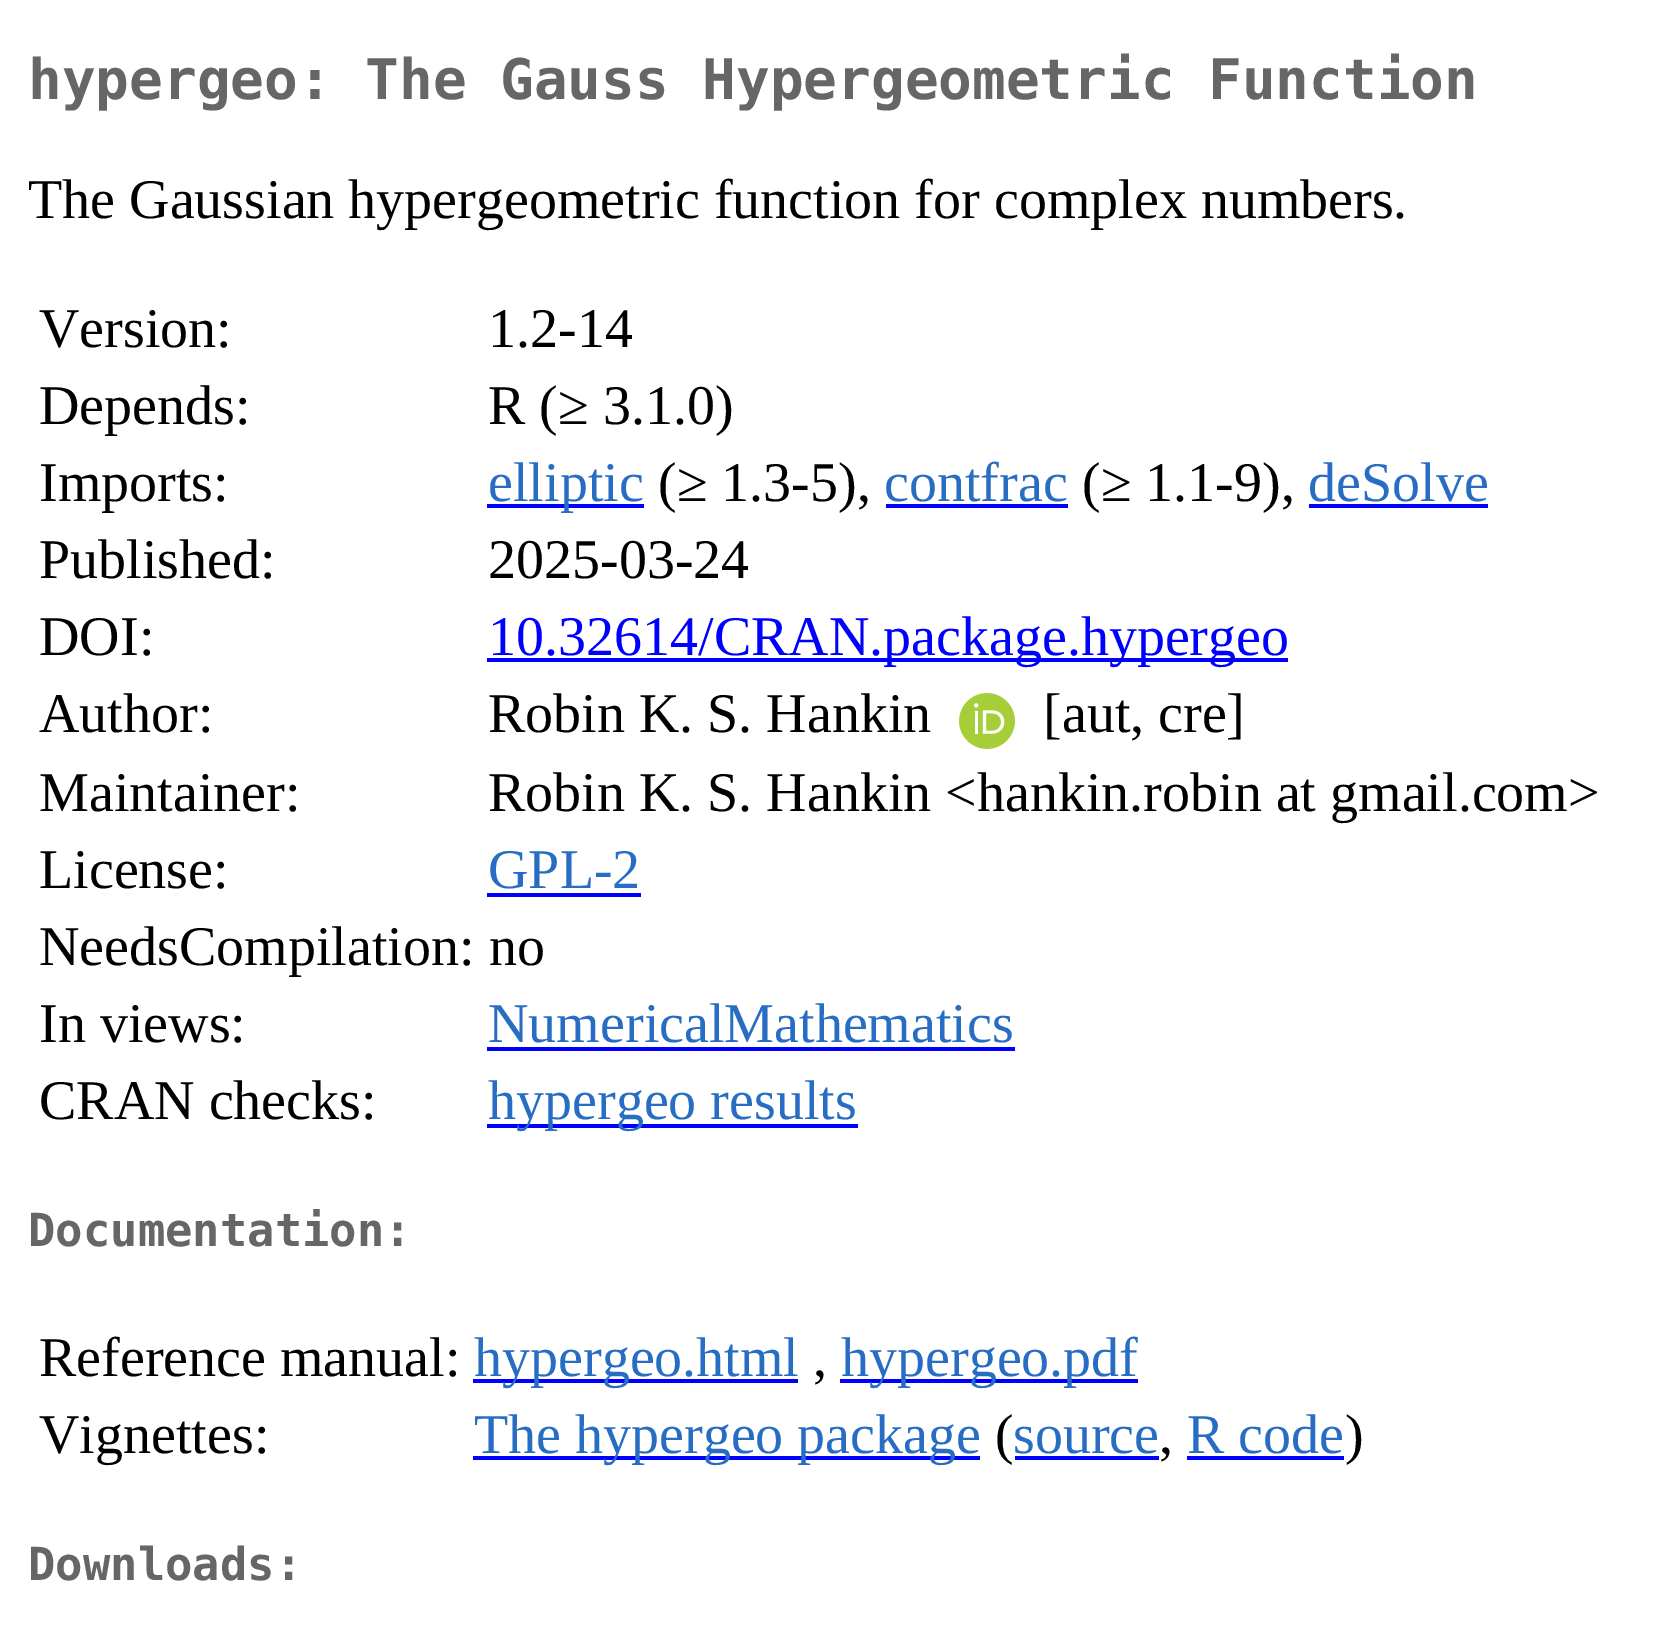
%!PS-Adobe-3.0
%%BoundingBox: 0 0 1659 1625
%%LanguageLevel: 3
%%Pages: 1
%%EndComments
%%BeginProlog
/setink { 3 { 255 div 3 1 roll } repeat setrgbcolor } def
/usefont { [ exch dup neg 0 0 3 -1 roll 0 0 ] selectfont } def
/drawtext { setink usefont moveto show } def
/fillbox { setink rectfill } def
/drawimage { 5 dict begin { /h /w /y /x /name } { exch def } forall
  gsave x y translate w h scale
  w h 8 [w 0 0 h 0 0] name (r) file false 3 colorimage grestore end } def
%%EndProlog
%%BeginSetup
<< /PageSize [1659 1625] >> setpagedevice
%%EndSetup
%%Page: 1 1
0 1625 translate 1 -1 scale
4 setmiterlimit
0 0 1659 1625 255 255 255 fillbox
(hypergeo: The Gauss Hypergeometric Function) 28 99 /DejaVuSansMono-Bold 56 102 102 102 drawtext
(The Gaussian hypergeometric function for complex numbers.) 28 218 /LiberationSerif-Regular 56 0 0 0 drawtext
(Version:) 39 347 /LiberationSerif-Regular 56 0 0 0 drawtext
(1.2-14) 488 347 /LiberationSerif-Regular 56 0 0 0 drawtext
(Depends:) 39 424 /LiberationSerif-Regular 56 0 0 0 drawtext
(R \(≥ 3.1.0\)) 488 424 /LiberationSerif-Regular 56 0 0 0 drawtext
(Imports:) 39 501 /LiberationSerif-Regular 56 0 0 0 drawtext
487 504 157 4 0 0 255 fillbox
(elliptic) 488 501 /LiberationSerif-Regular 56 39 109 195 drawtext
(\(≥ 1.3-5\),) 658 501 /LiberationSerif-Regular 56 0 0 0 drawtext
(contfrac) 884 501 /LiberationSerif-Regular 56 39 109 195 drawtext
886 504 182 4 0 0 255 fillbox
(\(≥ 1.1-9\),) 1082 501 /LiberationSerif-Regular 56 0 0 0 drawtext
(deSolve) 1308 501 /LiberationSerif-Regular 56 39 109 195 drawtext
1309 504 179 4 0 0 255 fillbox
(Published:) 39 578 /LiberationSerif-Regular 56 0 0 0 drawtext
(2025-03-24) 488 578 /LiberationSerif-Regular 56 0 0 0 drawtext
(DOI:) 39 655 /LiberationSerif-Regular 56 0 0 0 drawtext
487 658 801 4 0 0 255 fillbox
(10.32614/CRAN.package.hypergeo) 488 655 /LiberationSerif-Regular 56 0 0 255 drawtext
(Author:) 39 732 /LiberationSerif-Regular 56 0 0 0 drawtext
(Robin K. S. Hankin) 488 732 /LiberationSerif-Regular 56 0 0 0 drawtext
(assets/img1.rgb) 959 693 56 56 drawimage
([aut, cre]) 1043 732 /LiberationSerif-Regular 56 0 0 0 drawtext
(Maintainer:) 39 811 /LiberationSerif-Regular 56 0 0 0 drawtext
(Robin K. S. Hankin <hankin.robin at gmail.com>) 488 811 /LiberationSerif-Regular 56 0 0 0 drawtext
(License:) 39 888 /LiberationSerif-Regular 56 0 0 0 drawtext
(GPL-2) 488 888 /LiberationSerif-Regular 56 39 109 195 drawtext
487 893 154 4 0 0 255 fillbox
(NeedsCompilation: no) 39 965 /LiberationSerif-Regular 56 0 0 0 drawtext
(In views:) 39 1042 /LiberationSerif-Regular 56 0 0 0 drawtext
(NumericalMathematics) 488 1042 /LiberationSerif-Regular 56 39 109 195 drawtext
487 1047 528 4 0 0 255 fillbox
(CRAN checks:) 39 1119 /LiberationSerif-Regular 56 0 0 0 drawtext
487 1124 371 4 0 0 255 fillbox
(hypergeo results) 488 1119 /LiberationSerif-Regular 56 39 109 195 drawtext
(Documentation:) 28 1246 /DejaVuSansMono-Bold 45.5 102 102 102 drawtext
(Reference manual:) 39 1376 /LiberationSerif-Regular 56 0 0 0 drawtext
473 1379 325 4 0 0 255 fillbox
(hypergeo.html) 474 1376 /LiberationSerif-Regular 56 39 109 195 drawtext
(,) 813 1376 /LiberationSerif-Regular 56 0 0 0 drawtext
840 1379 298 4 0 0 255 fillbox
(hypergeo.pdf) 841 1376 /LiberationSerif-Regular 56 39 109 195 drawtext
(Vignettes:) 39 1453 /LiberationSerif-Regular 56 0 0 0 drawtext
473 1456 507 4 0 0 255 fillbox
(The hypergeo package) 474 1453 /LiberationSerif-Regular 56 39 109 195 drawtext
(\() 995 1453 /LiberationSerif-Regular 56 0 0 0 drawtext
(source) 1013 1453 /LiberationSerif-Regular 56 39 109 195 drawtext
1015 1456 144 4 0 0 255 fillbox
(,) 1159 1453 /LiberationSerif-Regular 56 0 0 0 drawtext
(R code) 1187 1453 /LiberationSerif-Regular 56 39 109 195 drawtext
1187 1456 157 4 0 0 255 fillbox
(\)) 1345 1453 /LiberationSerif-Regular 56 0 0 0 drawtext
(Downloads:) 28 1580 /DejaVuSansMono-Bold 45.5 102 102 102 drawtext
showpage
%%EOF
